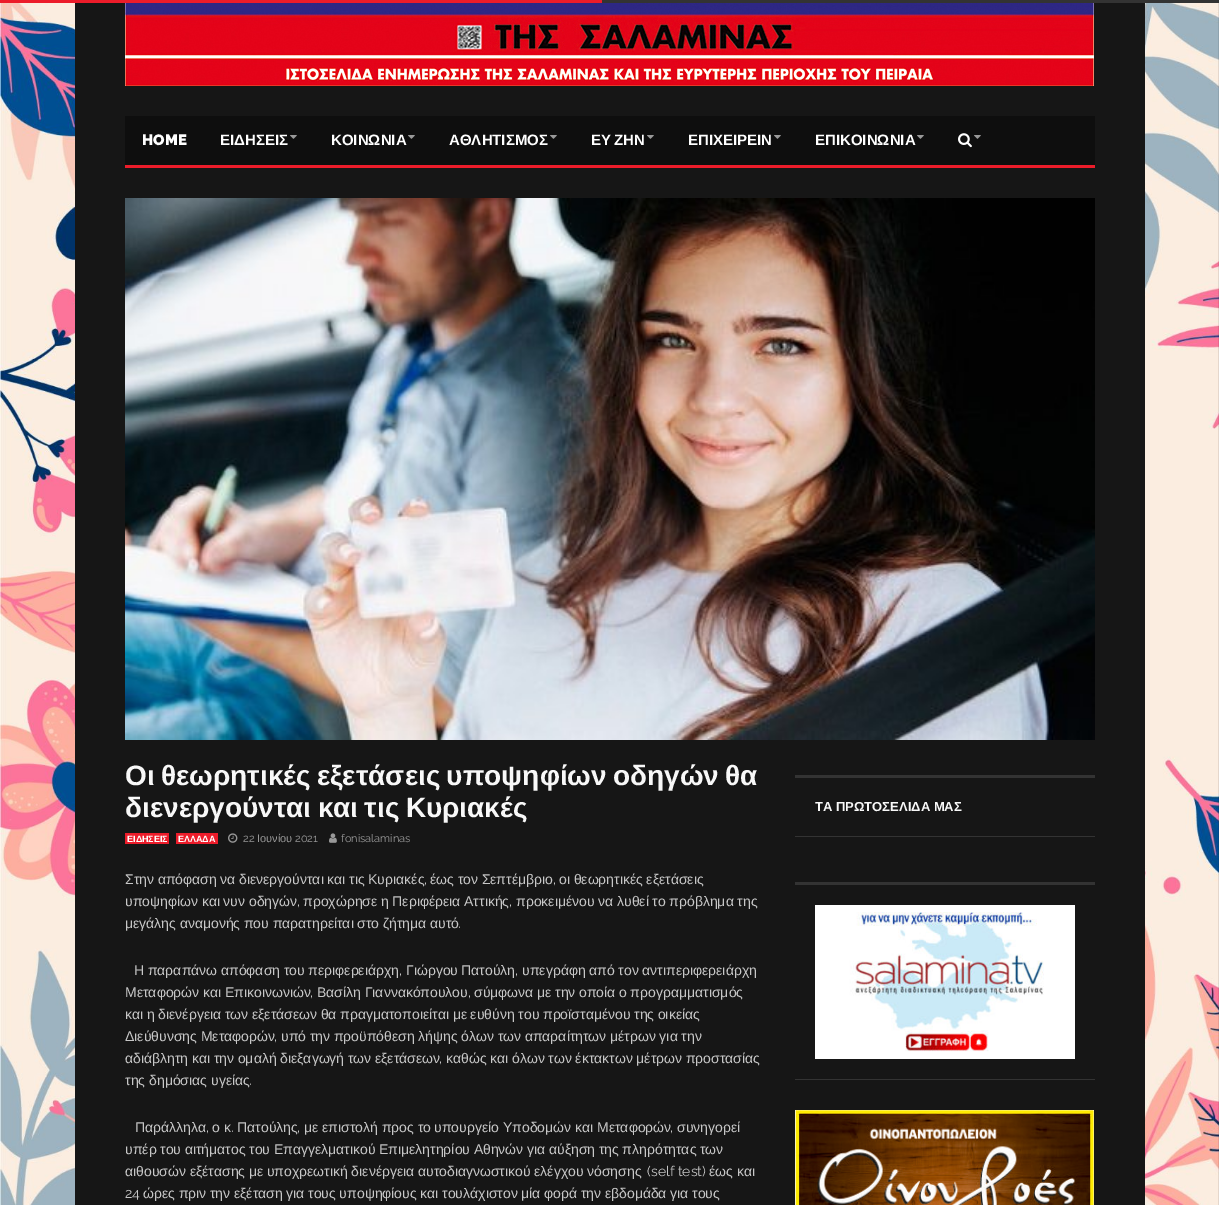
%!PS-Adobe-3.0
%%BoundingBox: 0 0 1219 1205
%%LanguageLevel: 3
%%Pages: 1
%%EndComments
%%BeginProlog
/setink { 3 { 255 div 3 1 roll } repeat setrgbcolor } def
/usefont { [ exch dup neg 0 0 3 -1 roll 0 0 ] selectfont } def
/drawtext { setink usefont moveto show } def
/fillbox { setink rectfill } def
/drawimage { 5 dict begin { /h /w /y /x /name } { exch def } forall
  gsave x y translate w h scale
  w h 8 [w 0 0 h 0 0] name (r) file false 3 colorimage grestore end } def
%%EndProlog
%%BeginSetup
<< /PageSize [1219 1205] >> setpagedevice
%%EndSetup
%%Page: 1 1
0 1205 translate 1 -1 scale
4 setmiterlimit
0 0 1219 1205 255 255 255 fillbox
(assets/img1.rgb) 0 3 1219 1202 drawimage
602 0 617 3 51 51 51 fillbox
0 0 602 3 236 28 42 fillbox
75 3 1070 1202 22 22 22 fillbox
(assets/img2.rgb) 125 3 969 83 drawimage
125 165 970 3 236 28 42 fillbox
125 116 970 49 14 14 14 fillbox
(HOME) 142 145 /Raleway-Black 15 255 255 255 drawtext
(ΕΙΔΗΣΕΙΣ) 220 145 /LiberationSans-Bold 15 255 255 255 drawtext
(assets/img3.rgb) 290 135 7 4 drawimage
(ΚΟΙΝΩΝΙΑ) 331 145 /LiberationSans-Bold 15 255 255 255 drawtext
(assets/img3.rgb) 408 135 7 4 drawimage
(ΑΘΛΗΤΙΣΜΟΣ) 449 145 /LiberationSans-Bold 15 255 255 255 drawtext
(assets/img3.rgb) 550 135 7 4 drawimage
591 145 moveto -1 0 32 (ΕΥ ΖΗΝ) widthshow
(assets/img3.rgb) 647 135 7 4 drawimage
(ΕΠΙΧΕΙΡΕΙΝ) 688 145 /LiberationSans-Bold 15 255 255 255 drawtext
(assets/img3.rgb) 774 135 7 4 drawimage
(ΕΠΙΚΟΙΝΩΝΙΑ) 815 145 /LiberationSans-Bold 15 255 255 255 drawtext
(assets/img3.rgb) 917 135 7 4 drawimage
(assets/img4.rgb) 958 133 14 15 drawimage
(assets/img3.rgb) 974 135 7 4 drawimage
(assets/img5.rgb) 125 198 970 542 drawimage
/LiberationSans-Bold 28 usefont
248 248 248 setink
125 785 moveto -1.5 0 32 (Οι θεωρητικές εξετάσεις υποψηφίων οδηγών θα) widthshow
125 817 moveto -1.5 0 32 (διενεργούνται και τις Κυριακές) widthshow
125 833 44 11 236 28 42 fillbox
(ΕΙΔΗΣΕΙΣ) 127 842 /LiberationSans-Bold 9 255 255 255 drawtext
176 833 42 11 236 28 42 fillbox
(ΕΛΛΑΔΑ) 178 842 /LiberationSans-Bold 9 255 255 255 drawtext
(assets/img6.rgb) 228 833 10 10 drawimage
(22) 243 842 /Raleway-Regular 11 153 153 153 drawtext
(Ιουνίου) 257 842 /LiberationSans-Regular 11 153 153 153 drawtext
(2021) 295 842 /Raleway-Regular 11 153 153 153 drawtext
(assets/img7.rgb) 329 833 8 10 drawimage
(fonisalaminas) 341 842 /Raleway-Regular 11 153 153 153 drawtext
/LiberationSans-Regular 14 usefont
199 199 199 setink
125 884 moveto -0.25 0 32 (Στην απόφαση να διενεργούνται και τις Κυριακές) widthshow
(,) 424 884 /Raleway-Regular 14 199 199 199 drawtext
/LiberationSans-Regular 14 usefont
430 884 moveto -0.25 0 32 (έως τον Σεπτέμβριο) widthshow
(,) 553 884 /Raleway-Regular 14 199 199 199 drawtext
/LiberationSans-Regular 14 usefont
559 884 moveto -0.25 0 32 (οι θεωρητικές εξετάσεις) widthshow
125 906 moveto -0.25 0 32 (υποψηφίων και νυν οδηγών) widthshow
(,) 297 906 /Raleway-Regular 14 199 199 199 drawtext
/LiberationSans-Regular 14 usefont
303 906 moveto -0.25 0 32 (προχώρησε η Περιφέρεια Αττικής) widthshow
(,) 509 906 /Raleway-Regular 14 199 199 199 drawtext
/LiberationSans-Regular 14 usefont
516 906 moveto -0.25 0 32 (προκειμένου να λυθεί το πρόβλημα της) widthshow
125 928 moveto -0.25 0 32 (μεγάλης αναμονής που παρατηρείται στο ζήτημα αυτό) widthshow
(.) 458 928 /Raleway-Regular 14 199 199 199 drawtext
/LiberationSans-Regular 14 usefont
134 975 moveto -0.25 0 32 (Η παραπάνω απόφαση του περιφερειάρχη) widthshow
(,) 399 975 /Raleway-Regular 14 199 199 199 drawtext
(Γιώργου) 406 975 /LiberationSans-Regular 14 199 199 199 drawtext
(Πατούλη) 461 975 /LiberationSans-Regular 14 199 199 199 drawtext
(,) 515 975 /Raleway-Regular 14 199 199 199 drawtext
/LiberationSans-Regular 14 usefont
522 975 moveto -0.25 0 32 (υπεγράφη από τον αντιπεριφερειάρχη) widthshow
125 997 moveto -0.25 0 32 (Μεταφορών και Επικοινωνιών) widthshow
(,) 310 997 /Raleway-Regular 14 199 199 199 drawtext
/LiberationSans-Regular 14 usefont
317 997 moveto -0.25 0 32 (Βασίλη Γιαννακόπουλου) widthshow
(,) 468 997 /Raleway-Regular 14 199 199 199 drawtext
/LiberationSans-Regular 14 usefont
474 997 moveto -0.25 0 32 (σύμφωνα με την οποία ο προγραμματισμός) widthshow
125 1019 moveto -0.25 0 32 (και η διενέργεια των εξετάσεων θα πραγματοποιείται με ευθύνη του προϊσταμένου της οικείας) widthshow
125 1041 moveto -0.25 0 32 (Διεύθυνσης Μεταφορών) widthshow
(,) 274 1041 /Raleway-Regular 14 199 199 199 drawtext
/LiberationSans-Regular 14 usefont
281 1041 moveto -0.25 0 32 (υπό την προϋπόθεση λήψης όλων των απαραίτητων μέτρων για την) widthshow
125 1063 moveto -0.25 0 32 (αδιάβλητη και την ομαλή διεξαγωγή των εξετάσεων) widthshow
(,) 439 1063 /Raleway-Regular 14 199 199 199 drawtext
/LiberationSans-Regular 14 usefont
446 1063 moveto -0.25 0 32 (καθώς και όλων των έκτακτων μέτρων προστασίας) widthshow
(της δημόσιας υγείας) 125 1085 /LiberationSans-Regular 14 199 199 199 drawtext
(.) 249 1085 /Raleway-Regular 14 199 199 199 drawtext
(Παράλληλα) 135 1132 /LiberationSans-Regular 14 199 199 199 drawtext
(,) 206 1132 /Raleway-Regular 14 199 199 199 drawtext
(ο κ) 212 1132 /LiberationSans-Regular 14 199 199 199 drawtext
(.) 231 1132 /Raleway-Regular 14 199 199 199 drawtext
(Πατούλης) 237 1132 /LiberationSans-Regular 14 199 199 199 drawtext
(,) 297 1132 /Raleway-Regular 14 199 199 199 drawtext
(με επιστολή προς το) 304 1132 /LiberationSans-Regular 14 199 199 199 drawtext
(υπουργείο Υποδομών και Μεταφορών) 434 1132 /LiberationSans-Regular 14 199 199 199 drawtext
(,) 670 1132 /Raleway-Regular 14 199 199 199 drawtext
(συνηγορεί) 677 1132 /LiberationSans-Regular 14 199 199 199 drawtext
125 1154 moveto -0.25 0 32 (υπέρ του αιτήματος του Επαγγελματικού Επιμελητηρίου Αθηνών για αύξηση της πληρότητας των) widthshow
125 1176 moveto -0.25 0 32 (αιθουσών εξέτασης με υποχρεωτική διενέργεια αυτοδιαγνωστικού ελέγχου νόσησης) widthshow
(\(self test\)) 647 1176 /Raleway-Regular 14 199 199 199 drawtext
/LiberationSans-Regular 14 usefont
709 1176 moveto -0.25 0 32 (έως και) widthshow
(24) 125 1198 /Raleway-Regular 14 199 199 199 drawtext
/LiberationSans-Regular 14 usefont
143 1198 moveto -0.25 0 32 (ώρες πριν την εξέταση για τους υποψηφίους και τουλάχιστον μία φορά την εβδομάδα για τους) widthshow
795 775 300 3 51 51 51 fillbox
795 836 300 1 51 51 51 fillbox
(ΤΑ ΠΡΩΤΟΣΕΛΙΔΑ ΜΑΣ) 815 811 /LiberationSans-Bold 13 248 248 248 drawtext
795 882 300 3 51 51 51 fillbox
795 1079 300 1 51 51 51 fillbox
(assets/img8.rgb) 815 905 260 154 drawimage
(assets/img9.rgb) 795 1110 299 95 drawimage
showpage
%%EOF
